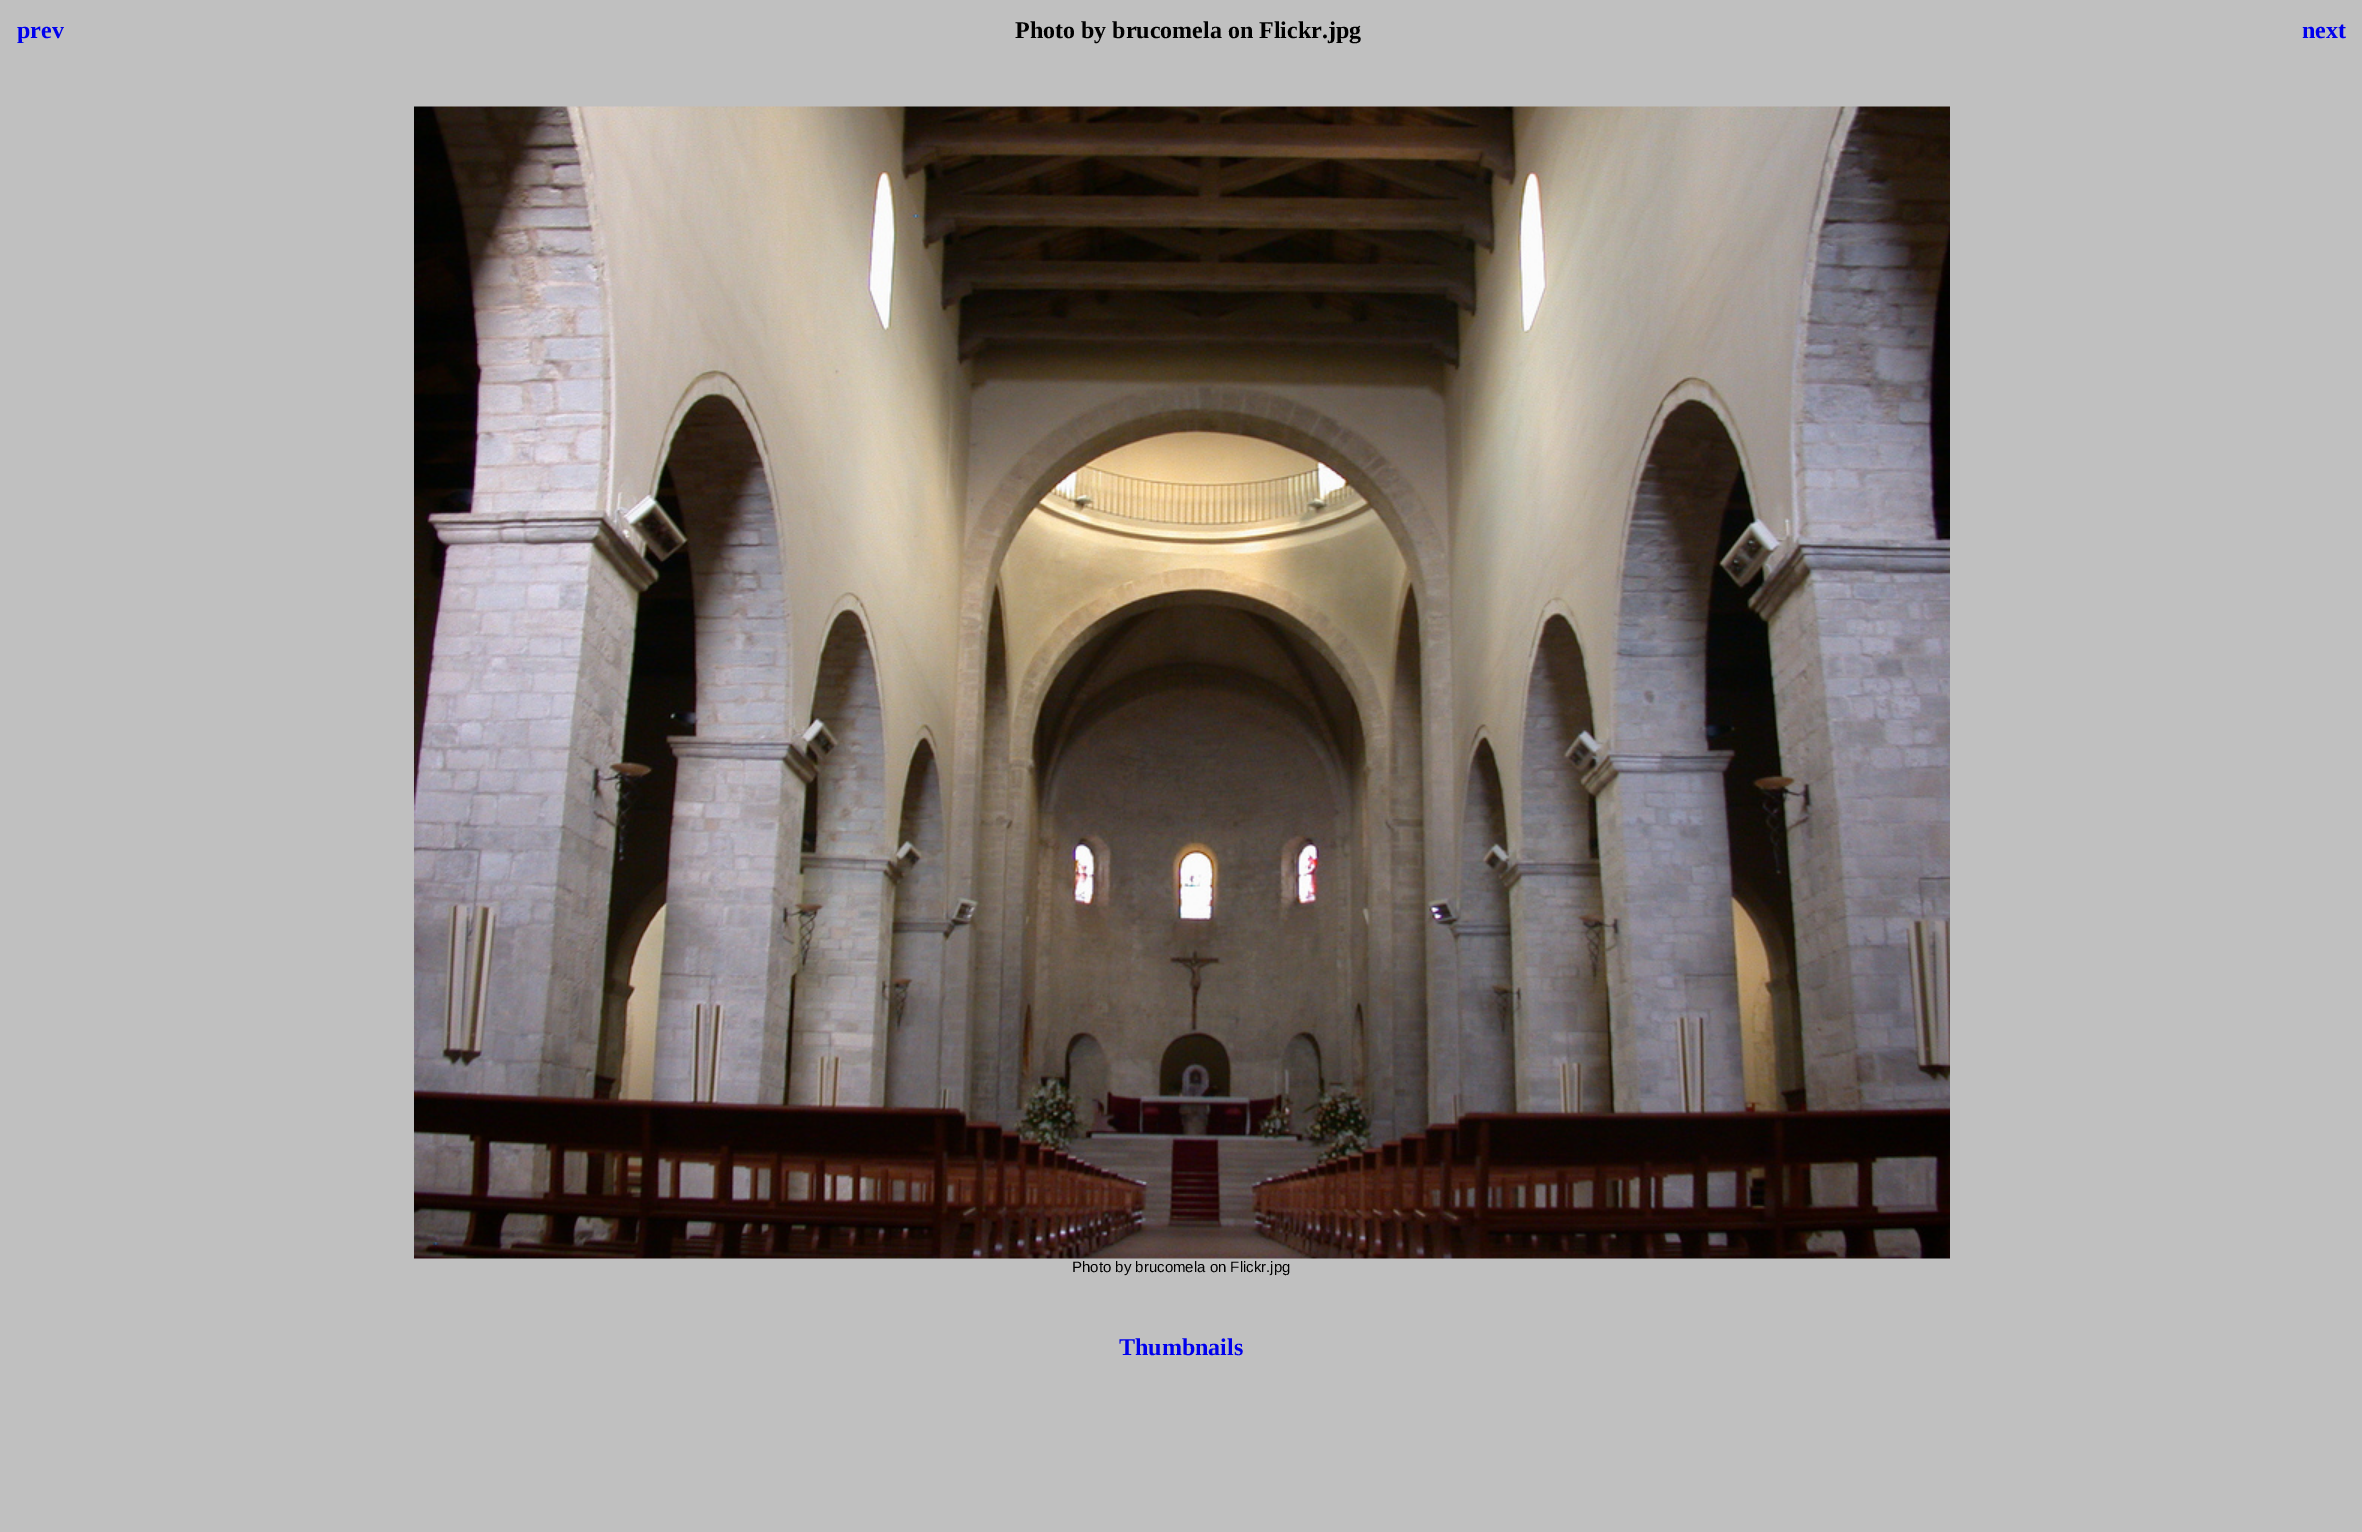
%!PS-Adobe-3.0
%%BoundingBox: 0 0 2362 1532
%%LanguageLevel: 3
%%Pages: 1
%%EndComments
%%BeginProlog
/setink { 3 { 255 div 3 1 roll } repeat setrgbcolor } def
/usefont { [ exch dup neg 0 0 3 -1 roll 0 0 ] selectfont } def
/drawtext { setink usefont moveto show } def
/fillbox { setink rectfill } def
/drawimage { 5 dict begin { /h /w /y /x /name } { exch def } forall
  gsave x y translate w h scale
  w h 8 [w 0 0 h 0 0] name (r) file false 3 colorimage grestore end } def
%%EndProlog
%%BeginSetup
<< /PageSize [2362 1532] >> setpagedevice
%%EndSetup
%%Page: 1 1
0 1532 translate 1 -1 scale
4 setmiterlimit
0 0 2362 1532 192 192 192 fillbox
(prev) 17 38 /LiberationSerif-Bold 24 0 0 238 drawtext
(Photo by brucomela on Flickr.jpg) 1015 38 /LiberationSerif-Bold 24 0 0 0 drawtext
(next) 2302 38 /LiberationSerif-Bold 24 0 0 238 drawtext
(assets/img1.rgb) 414 106 1536 1153 drawimage
(Photo by brucomela on Flickr.jpg) 1072 1272 /LiberationSans-Regular 15 0 0 0 drawtext
(Thumbnails) 1119 1355 /LiberationSerif-Bold 24 0 0 238 drawtext
showpage
%%EOF
